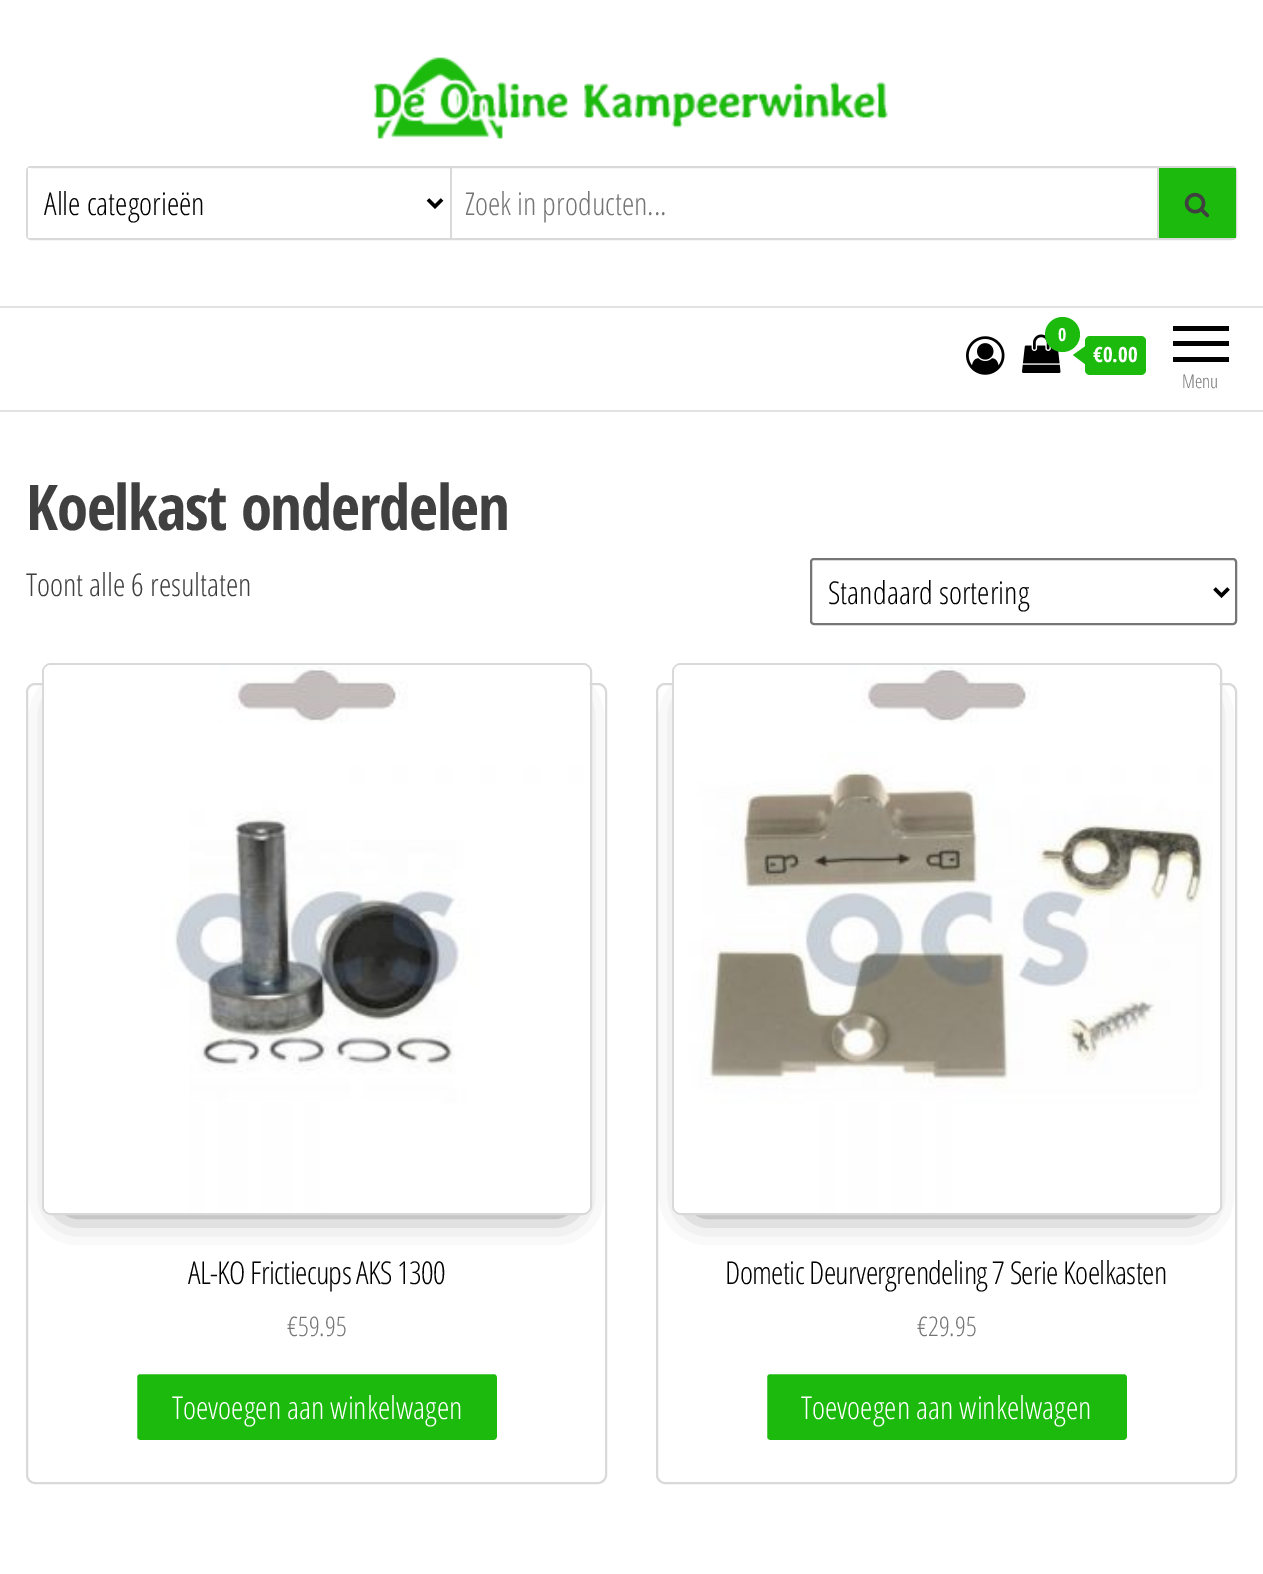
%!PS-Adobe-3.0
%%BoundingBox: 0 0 1263 1574
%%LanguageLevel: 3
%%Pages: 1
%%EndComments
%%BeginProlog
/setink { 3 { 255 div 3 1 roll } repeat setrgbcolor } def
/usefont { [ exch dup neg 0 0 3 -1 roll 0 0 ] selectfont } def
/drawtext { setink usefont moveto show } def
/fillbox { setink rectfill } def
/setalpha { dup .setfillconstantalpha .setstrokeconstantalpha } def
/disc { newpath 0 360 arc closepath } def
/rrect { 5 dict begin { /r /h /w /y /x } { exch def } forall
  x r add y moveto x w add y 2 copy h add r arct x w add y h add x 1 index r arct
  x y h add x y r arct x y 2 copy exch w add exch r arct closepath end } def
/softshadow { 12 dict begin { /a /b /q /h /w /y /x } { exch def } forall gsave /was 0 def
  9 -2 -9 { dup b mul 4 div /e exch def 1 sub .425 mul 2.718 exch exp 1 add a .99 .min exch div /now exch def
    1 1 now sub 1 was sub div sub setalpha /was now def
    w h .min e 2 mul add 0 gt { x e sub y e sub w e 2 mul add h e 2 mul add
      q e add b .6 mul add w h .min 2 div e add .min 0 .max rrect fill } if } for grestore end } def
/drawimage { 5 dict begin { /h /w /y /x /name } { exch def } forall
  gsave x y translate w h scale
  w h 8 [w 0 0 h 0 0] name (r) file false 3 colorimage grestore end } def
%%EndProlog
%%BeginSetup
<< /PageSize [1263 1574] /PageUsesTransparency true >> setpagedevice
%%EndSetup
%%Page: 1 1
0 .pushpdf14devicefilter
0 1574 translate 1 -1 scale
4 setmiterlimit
0 0 1263 1574 255 255 255 fillbox
(assets/img1.rgb) 374 57 514 82 drawimage
217 217 217 setink
2 setlinewidth
27 167 1209 72 4 rrect stroke
28 168 3 70 255 255 255 fillbox
450 168 2 70 217 217 217 fillbox
0 0 0 setink
3.5 setlinewidth
428 199.5 moveto 435 206.5 lineto 442 199.5 lineto stroke
(Alle categorieën) 44 215 /OpenSansCondensed-Light 31.5 0 0 0 drawtext
gsave
466 182 756 42 rectclip
(Zoek in producten...) 465 215 /OpenSansCondensed-Light 31.5 117 117 117 drawtext
grestore
1159 168 77 70 27 186 13 fillbox
1157 168 2 70 217 217 217 fillbox
(assets/img2.rgb) 1184 192 26 26 drawimage
0 306 1263 2 226 226 226 fillbox
0 410 1263 2 226 226 226 fillbox
(assets/img3.rgb) 966 336 39 39 drawimage
(assets/img4.rgb) 1022 334 39 39 drawimage
27 186 13 setink
1062.5 334.5 17.5 disc fill
(0) 1058 341 /OpenSansCondensed-Bold 18 255 255 255 drawtext
27 186 13 setink
1085 336 61 39 5 rrect fill
1085 346.5 moveto 1085 364 lineto 1073 355 lineto closepath fill
(€0.00) 1093 362 /OpenSansCondensed-Bold 21 255 255 255 drawtext
1173 326 56 5 0 0 0 fillbox
1173 341 56 5 0 0 0 fillbox
1173 357 56 5 0 0 0 fillbox
(Menu) 1182 388 /OpenSansCondensed-Light 19 117 117 117 drawtext
/OpenSansCondensed-Bold 63 usefont
64 64 64 setink
26 530 moveto -1.25 0 (Koelkast onderdelen) ashow
(Toont alle 6 resultaten) 26 596 /OpenSansCondensed-Light 31.5 64 64 64 drawtext
118 118 118 setink
2 setlinewidth
811 559 425 65 3 rrect stroke
0 0 0 setink
3.5 setlinewidth
1214.5 588.5 moveto 1221.5 595.5 lineto 1228.5 588.5 lineto stroke
(Standaard sortering) 828 604 /OpenSansCondensed-Light 31.5 0 0 0 drawtext
217 217 217 setink
2 setlinewidth
27 684 579 799 8 rrect stroke
0 0 0 setink
68 707 497 499 0 17.5 0.75 softshadow
217 217 217 setink
43 664 548 550 8 rrect stroke
(assets/img5.rgb) 44 665 546 548 drawimage
0 0 0 setink
188 1284 moveto -0.65 0 (AL-KO Frictiecups AKS 1300) ashow
(€59.95) 287 1336 /OpenSansCondensed-Light 27 117 117 117 drawtext
27 186 13 setink
136 1373 362 68 4 rrect gsave fill grestore
255 255 255 setink
stroke
(Toevoegen aan winkelwagen) 172 1419 /OpenSansCondensed-Light 31.5 255 255 255 drawtext
217 217 217 setink
657 684 579 799 8 rrect stroke
0 0 0 setink
698 707 497 499 0 17.5 0.75 softshadow
217 217 217 setink
673 664 548 550 8 rrect stroke
(assets/img6.rgb) 674 665 546 548 drawimage
0 0 0 setink
725 1284 moveto -0.65 0 (Dometic Deurvergrendeling 7 Serie Koelkasten) ashow
(€29.95) 917 1336 /OpenSansCondensed-Light 27 117 117 117 drawtext
27 186 13 setink
766 1373 362 68 4 rrect gsave fill grestore
255 255 255 setink
stroke
(Toevoegen aan winkelwagen) 801 1419 /OpenSansCondensed-Light 31.5 255 255 255 drawtext
.poppdf14devicefilter showpage
%%EOF
